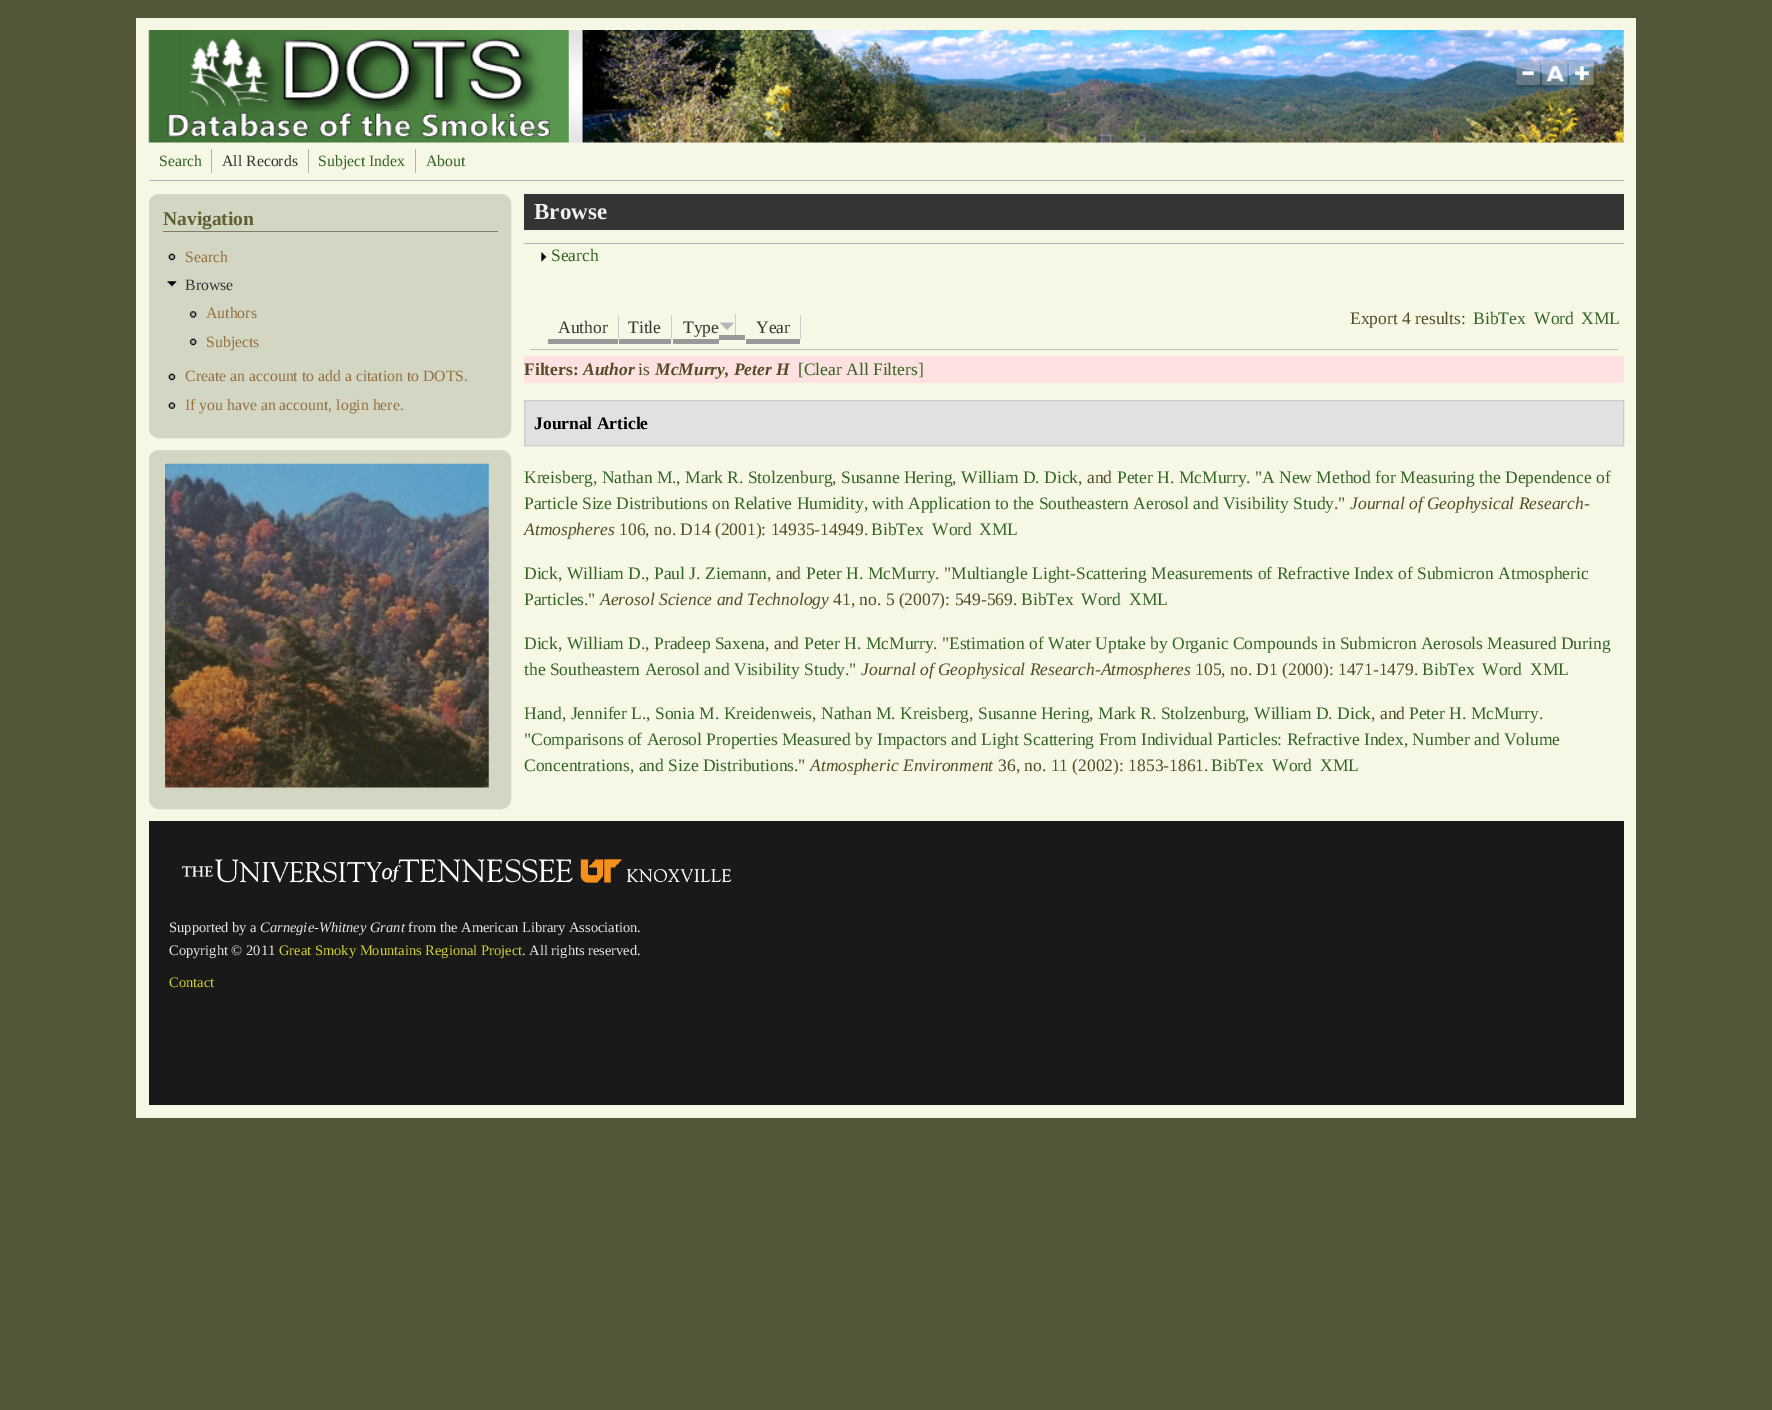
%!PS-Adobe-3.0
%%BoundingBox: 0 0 1772 1410
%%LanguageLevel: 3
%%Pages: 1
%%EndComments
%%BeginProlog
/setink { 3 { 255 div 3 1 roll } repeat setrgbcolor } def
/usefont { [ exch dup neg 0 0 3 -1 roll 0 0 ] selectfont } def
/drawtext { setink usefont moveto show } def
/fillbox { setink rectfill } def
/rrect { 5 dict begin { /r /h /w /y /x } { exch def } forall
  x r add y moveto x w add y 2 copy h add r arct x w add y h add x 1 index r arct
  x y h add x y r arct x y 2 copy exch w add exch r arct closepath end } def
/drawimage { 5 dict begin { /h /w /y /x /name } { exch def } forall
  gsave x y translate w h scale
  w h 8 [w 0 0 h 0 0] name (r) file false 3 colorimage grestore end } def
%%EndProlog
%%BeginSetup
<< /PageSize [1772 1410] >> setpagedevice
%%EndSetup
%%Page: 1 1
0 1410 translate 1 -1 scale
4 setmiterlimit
0 0 1772 1410 83 87 57 fillbox
136 18 1500 1100 246 247 229 fillbox
(assets/img1.rgb) 148 30 1476 113 drawimage
(assets/img2.rgb) 167 35 384 103 drawimage
(assets/img3.rgb) 1514 59 28 30 drawimage
(assets/img4.rgb) 1542 59 27 30 drawimage
(assets/img5.rgb) 1570 59 28 30 drawimage
149 180 1475 1 180 180 180 fillbox
(Search) 159 166 /LiberationSerif-Regular 15.75 51 101 37 drawtext
211 149 1 24 180 180 180 fillbox
(All Records) 222 166 /LiberationSerif-Regular 15.75 54 53 51 drawtext
308 149 1 24 180 180 180 fillbox
(Subject Index) 318 166 /LiberationSerif-Regular 15.75 51 101 37 drawtext
415 149 1 24 180 180 180 fillbox
(About) 426 166 /LiberationSerif-Regular 15.75 51 101 37 drawtext
211 214 195 setink
149.5 194.5 361 243 9.5 rrect gsave fill grestore
stroke
163 231 335 1 129 123 104 fillbox
(Navigation) 163 225 /LiberationSerif-Bold 19.5 96 96 52 drawtext
(assets/img6.rgb) 168 253 8 8 drawimage
(Search) 185 262 /LiberationSerif-Regular 15.75 150 113 68 drawtext
(assets/img7.rgb) 167 281 10 6 drawimage
(Browse) 185 290 /LiberationSerif-Regular 15.75 54 53 51 drawtext
(assets/img8.rgb) 189 311 8 7 drawimage
(Authors) 206 318 /LiberationSerif-Regular 15.75 150 113 68 drawtext
(assets/img9.rgb) 189 338 8 8 drawimage
(Subjects) 206 347 /LiberationSerif-Regular 15.75 150 113 68 drawtext
(assets/img6.rgb) 168 373 8 8 drawimage
(Create an account to add a citation to DOTS.) 185 381 /LiberationSerif-Regular 15.75 150 113 68 drawtext
(assets/img10.rgb) 168 402 8 7 drawimage
(If you have an account, login here.) 185 410 /LiberationSerif-Regular 15.75 150 113 68 drawtext
211 214 195 setink
149.5 450.5 361 358 9.5 rrect gsave fill grestore
stroke
(assets/img11.rgb) 165 463 324 325 drawimage
524 194 1100 36 52 52 52 fillbox
(Browse) 534 219 /LiberationSerif-Bold 23 241 241 241 drawtext
524 243 1100 1 180 180 180 fillbox
(assets/img12.rgb) 541 252 6 10 drawimage
(Search) 551 261 /LiberationSerif-Regular 17.5 51 101 37 drawtext
530 349 1088 1 187 187 187 fillbox
(Author) 558 333 /LiberationSerif-Regular 17.5 54 53 51 drawtext
618 315 1 24 204 204 204 fillbox
548 339 70 5 153 153 153 fillbox
(Title) 628 333 /LiberationSerif-Regular 17.5 54 53 51 drawtext
671 315 1 24 204 204 204 fillbox
619 339 52 5 153 153 153 fillbox
(Type) 683 333 /LiberationSerif-Regular 17.5 54 53 51 drawtext
735 314 1 21 204 204 204 fillbox
673 339 46 5 153 153 153 fillbox
719 335 26 5 153 153 153 fillbox
(assets/img13.rgb) 720 322 14 9 drawimage
(Year) 756 333 /LiberationSerif-Regular 17.5 54 53 51 drawtext
800 315 1 24 204 204 204 fillbox
746 339 54 5 153 153 153 fillbox
(Export 4 results:) 1350 324 /LiberationSerif-Regular 17.5 82 78 39 drawtext
(BibTex) 1473 324 /LiberationSerif-Regular 17.5 51 101 37 drawtext
(Word) 1534 324 /LiberationSerif-Regular 17.5 51 101 37 drawtext
(XML) 1581 324 /LiberationSerif-Regular 17.5 51 101 37 drawtext
524 356 1100 27 255 225 225 fillbox
(Filters:) 524 375 /LiberationSerif-Bold 17.5 82 78 39 drawtext
(Author) 583 375 /LiberationSerif-BoldItalic 17.5 82 78 39 drawtext
(is) 638 375 /LiberationSerif-Regular 17.5 82 78 39 drawtext
(McMurry, Peter H) 655 375 /LiberationSerif-BoldItalic 17.5 82 78 39 drawtext
([Clear All Filters]) 798 375 /LiberationSerif-Regular 17.5 51 101 37 drawtext
225 225 225 setink
524.5 400.5 moveto 1623.5 400.5 lineto 1623.5 445.5 lineto 524.5 445.5 lineto closepath gsave fill grestore
204 204 204 setink
stroke
(Journal Article) 534 429 /LiberationSerif-Bold 17.5 0 0 0 drawtext
(Kreisberg, Nathan M.) 524 483 /LiberationSerif-Regular 17.5 51 101 37 drawtext
(,) 676 483 /LiberationSerif-Regular 17.5 82 78 39 drawtext
(Mark R. Stolzenburg) 685 483 /LiberationSerif-Regular 17.5 51 101 37 drawtext
(,) 832 483 /LiberationSerif-Regular 17.5 82 78 39 drawtext
(Susanne Hering) 841 483 /LiberationSerif-Regular 17.5 51 101 37 drawtext
(,) 952 483 /LiberationSerif-Regular 17.5 82 78 39 drawtext
(William D. Dick) 961 483 /LiberationSerif-Regular 17.5 51 101 37 drawtext
(, and) 1078 483 /LiberationSerif-Regular 17.5 82 78 39 drawtext
(Peter H. McMurry) 1117 483 /LiberationSerif-Regular 17.5 51 101 37 drawtext
(. ") 1246 483 /LiberationSerif-Regular 17.5 82 78 39 drawtext
(A New Method for Measuring the Dependence of) 1262 483 /LiberationSerif-Regular 17.5 51 101 37 drawtext
(Particle Size Distributions on Relative Humidity, with Application to the Southeastern Aerosol and Visibility Study) 524 509 /LiberationSerif-Regular 17.5 51 101 37 drawtext
(.") 1334 509 /LiberationSerif-Regular 17.5 82 78 39 drawtext
(Journal of Geophysical Research-) 1350 509 /LiberationSerif-Italic 17.5 82 78 39 drawtext
(Atmospheres) 524 535 /LiberationSerif-Italic 17.5 82 78 39 drawtext
(106, no. D14 \(2001\): 14935-14949.) 619 535 /LiberationSerif-Regular 17.5 82 78 39 drawtext
(BibTex) 871 535 /LiberationSerif-Regular 17.5 51 101 37 drawtext
(Word) 932 535 /LiberationSerif-Regular 17.5 51 101 37 drawtext
(XML) 979 535 /LiberationSerif-Regular 17.5 51 101 37 drawtext
(Dick, William D.) 524 579 /LiberationSerif-Regular 17.5 51 101 37 drawtext
(,) 645 579 /LiberationSerif-Regular 17.5 82 78 39 drawtext
(Paul J. Ziemann) 654 579 /LiberationSerif-Regular 17.5 51 101 37 drawtext
(, and) 767 579 /LiberationSerif-Regular 17.5 82 78 39 drawtext
(Peter H. McMurry) 806 579 /LiberationSerif-Regular 17.5 51 101 37 drawtext
(. ") 935 579 /LiberationSerif-Regular 17.5 82 78 39 drawtext
(Multiangle Light-Scattering Measurements of Refractive Index of Submicron Atmospheric) 951 579 /LiberationSerif-Regular 17.5 51 101 37 drawtext
(Particles) 524 605 /LiberationSerif-Regular 17.5 51 101 37 drawtext
(.") 584 605 /LiberationSerif-Regular 17.5 82 78 39 drawtext
(Aerosol Science and Technology) 600 605 /LiberationSerif-Italic 17.5 82 78 39 drawtext
(41, no. 5 \(2007\): 549-569.) 833 605 /LiberationSerif-Regular 17.5 82 78 39 drawtext
(BibTex) 1021 605 /LiberationSerif-Regular 17.5 51 101 37 drawtext
(Word) 1081 605 /LiberationSerif-Regular 17.5 51 101 37 drawtext
(XML) 1129 605 /LiberationSerif-Regular 17.5 51 101 37 drawtext
(Dick, William D.) 524 649 /LiberationSerif-Regular 17.5 51 101 37 drawtext
(,) 645 649 /LiberationSerif-Regular 17.5 82 78 39 drawtext
(Pradeep Saxena) 654 649 /LiberationSerif-Regular 17.5 51 101 37 drawtext
(, and) 765 649 /LiberationSerif-Regular 17.5 82 78 39 drawtext
(Peter H. McMurry) 804 649 /LiberationSerif-Regular 17.5 51 101 37 drawtext
(. ") 933 649 /LiberationSerif-Regular 17.5 82 78 39 drawtext
(Estimation of Water Uptake by Organic Compounds in Submicron Aerosols Measured During) 949 649 /LiberationSerif-Regular 17.5 51 101 37 drawtext
(the Southeastern Aerosol and Visibility Study) 524 675 /LiberationSerif-Regular 17.5 51 101 37 drawtext
(.") 845 675 /LiberationSerif-Regular 17.5 82 78 39 drawtext
(Journal of Geophysical Research-Atmospheres) 861 675 /LiberationSerif-Italic 17.5 82 78 39 drawtext
(105, no. D1 \(2000\): 1471-1479.) 1195 675 /LiberationSerif-Regular 17.5 82 78 39 drawtext
(BibTex) 1422 675 /LiberationSerif-Regular 17.5 51 101 37 drawtext
(Word) 1482 675 /LiberationSerif-Regular 17.5 51 101 37 drawtext
(XML) 1530 675 /LiberationSerif-Regular 17.5 51 101 37 drawtext
(Hand, Jennifer L.) 524 719 /LiberationSerif-Regular 17.5 51 101 37 drawtext
(,) 646 719 /LiberationSerif-Regular 17.5 82 78 39 drawtext
(Sonia M. Kreidenweis) 655 719 /LiberationSerif-Regular 17.5 51 101 37 drawtext
(,) 812 719 /LiberationSerif-Regular 17.5 82 78 39 drawtext
(Nathan M. Kreisberg) 821 719 /LiberationSerif-Regular 17.5 51 101 37 drawtext
(,) 969 719 /LiberationSerif-Regular 17.5 82 78 39 drawtext
(Susanne Hering) 978 719 /LiberationSerif-Regular 17.5 51 101 37 drawtext
(,) 1089 719 /LiberationSerif-Regular 17.5 82 78 39 drawtext
(Mark R. Stolzenburg) 1098 719 /LiberationSerif-Regular 17.5 51 101 37 drawtext
(,) 1245 719 /LiberationSerif-Regular 17.5 82 78 39 drawtext
(William D. Dick) 1254 719 /LiberationSerif-Regular 17.5 51 101 37 drawtext
(, and) 1371 719 /LiberationSerif-Regular 17.5 82 78 39 drawtext
(Peter H. McMurry) 1409 719 /LiberationSerif-Regular 17.5 51 101 37 drawtext
(.) 1539 719 /LiberationSerif-Regular 17.5 82 78 39 drawtext
(") 524 745 /LiberationSerif-Regular 17.5 82 78 39 drawtext
(Comparisons of Aerosol Properties Measured by Impactors and Light Scattering From Individual Particles: Refractive Index, Number and Volume) 531 745 /LiberationSerif-Regular 17.5 51 101 37 drawtext
(Concentrations, and Size Distributions) 524 771 /LiberationSerif-Regular 17.5 51 101 37 drawtext
(.") 794 771 /LiberationSerif-Regular 17.5 82 78 39 drawtext
(Atmospheric Environment) 810 771 /LiberationSerif-Italic 17.5 82 78 39 drawtext
(36, no. 11 \(2002\): 1853-1861.) 998 771 /LiberationSerif-Regular 17.5 82 78 39 drawtext
(BibTex) 1211 771 /LiberationSerif-Regular 17.5 51 101 37 drawtext
(Word) 1272 771 /LiberationSerif-Regular 17.5 51 101 37 drawtext
(XML) 1320 771 /LiberationSerif-Regular 17.5 51 101 37 drawtext
149 821 1475 284 25 25 25 fillbox
(assets/img14.rgb) 182 859 550 24 drawimage
(Supported by a) 169 932 /LiberationSerif-Regular 14.5 232 230 229 drawtext
(Carnegie-Whitney Grant) 260 932 /LiberationSerif-Italic 14.5 232 230 229 drawtext
(from the American Library Association.) 408 932 /LiberationSerif-Regular 14.5 232 230 229 drawtext
(Copyright © 2011) 169 955 /LiberationSerif-Regular 14.5 232 230 229 drawtext
(Great Smoky Mountains Regional Project) 279 955 /LiberationSerif-Regular 14.5 209 209 45 drawtext
(. All rights reserved.) 522 955 /LiberationSerif-Regular 14.5 232 230 229 drawtext
(Contact) 169 987 /LiberationSerif-Regular 14.5 209 209 45 drawtext
showpage
%%EOF
